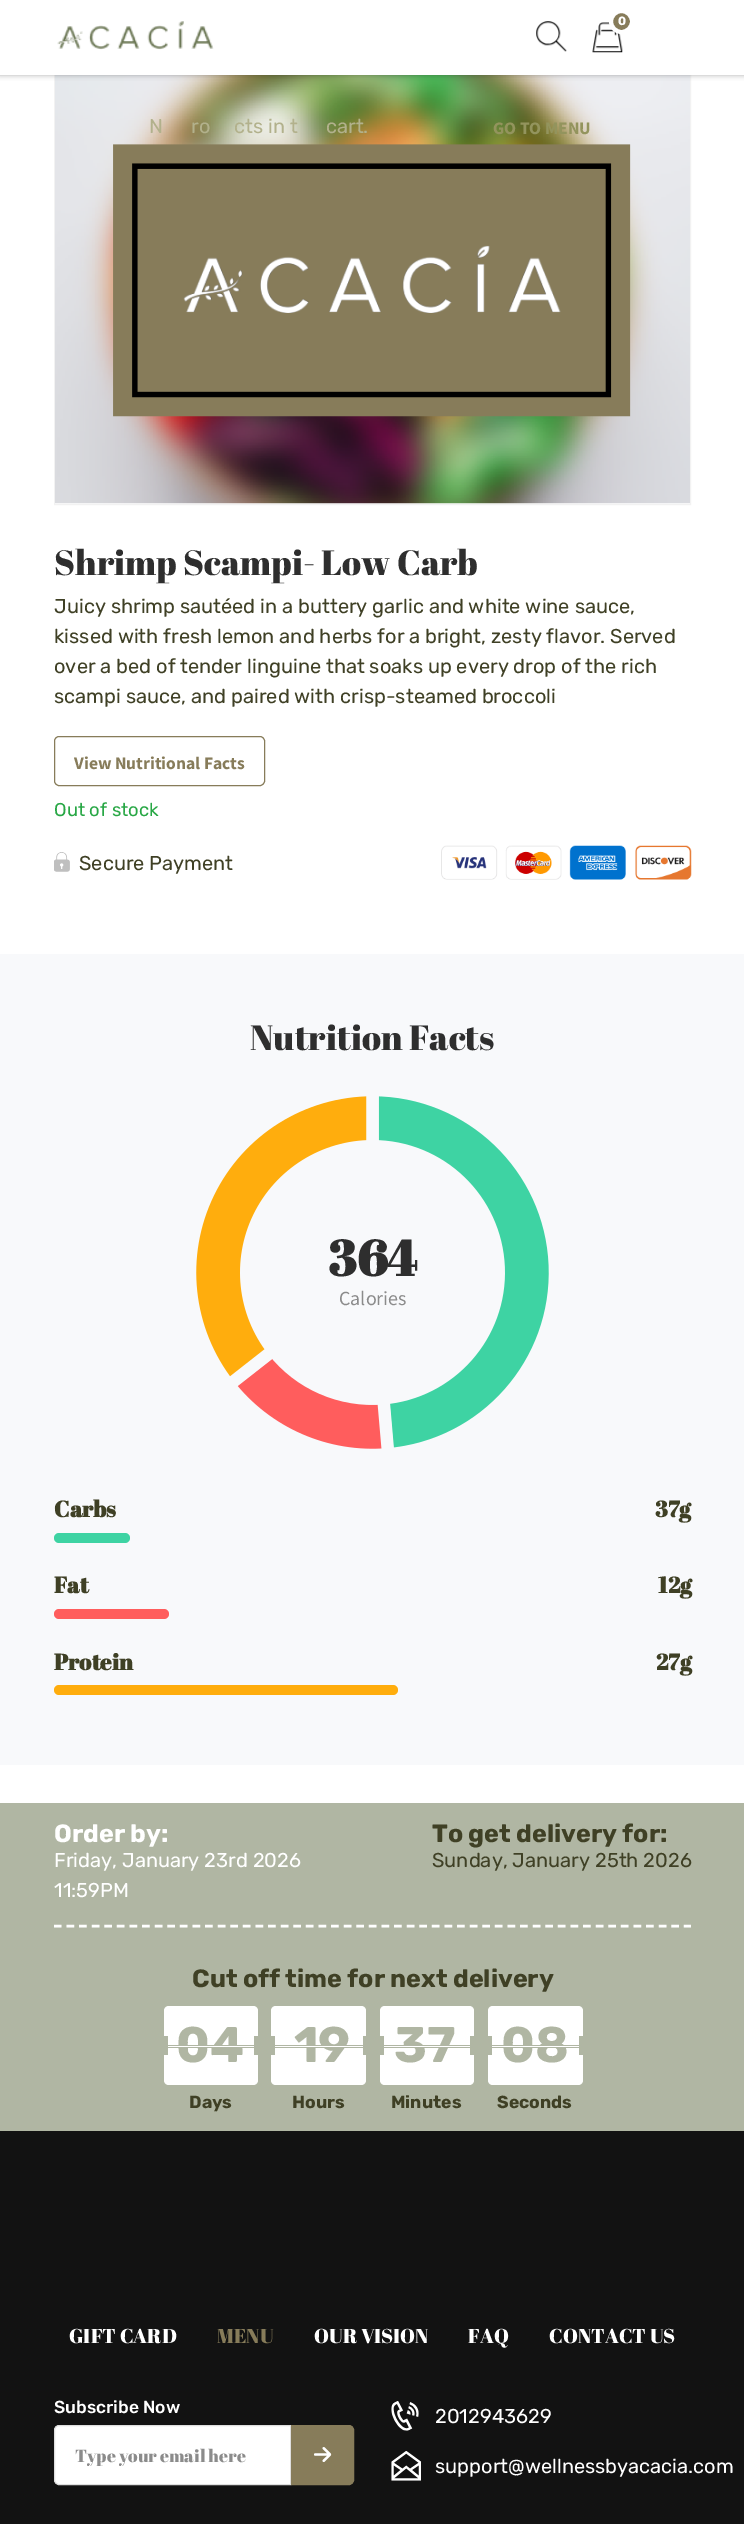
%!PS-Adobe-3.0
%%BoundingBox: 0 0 744 2524
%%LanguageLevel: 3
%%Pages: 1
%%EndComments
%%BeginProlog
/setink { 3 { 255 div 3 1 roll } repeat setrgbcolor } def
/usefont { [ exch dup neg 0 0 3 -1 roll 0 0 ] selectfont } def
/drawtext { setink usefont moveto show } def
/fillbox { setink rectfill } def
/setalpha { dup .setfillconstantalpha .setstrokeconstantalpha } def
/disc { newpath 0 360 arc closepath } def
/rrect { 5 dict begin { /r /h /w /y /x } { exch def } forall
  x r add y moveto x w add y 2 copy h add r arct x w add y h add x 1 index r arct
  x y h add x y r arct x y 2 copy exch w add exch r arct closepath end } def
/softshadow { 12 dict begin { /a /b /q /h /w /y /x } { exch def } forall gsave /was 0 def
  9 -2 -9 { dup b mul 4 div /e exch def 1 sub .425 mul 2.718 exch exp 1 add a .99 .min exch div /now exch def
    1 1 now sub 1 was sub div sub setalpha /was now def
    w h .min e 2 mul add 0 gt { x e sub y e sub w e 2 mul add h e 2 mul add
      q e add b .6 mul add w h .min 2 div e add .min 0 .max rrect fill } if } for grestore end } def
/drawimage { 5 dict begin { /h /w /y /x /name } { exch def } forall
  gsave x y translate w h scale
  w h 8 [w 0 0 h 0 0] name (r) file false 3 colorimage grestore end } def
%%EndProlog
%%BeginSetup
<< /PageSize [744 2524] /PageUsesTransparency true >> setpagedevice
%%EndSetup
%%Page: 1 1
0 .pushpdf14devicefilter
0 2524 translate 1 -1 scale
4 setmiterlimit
0 0 744 2524 255 255 255 fillbox
242 242 242 setink
54.5 68.5 636 436 rectstroke
(assets/img4.rgb) 55 75 635 429 drawimage
18 18 18 setink
0 -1 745 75 0 3 0.5 softshadow
0 0 744 75 255 255 255 fillbox
(assets/img1.rgb) 57 21 157 29 drawimage
(assets/img2.rgb) 592 22 31 31 drawimage
135 124 90 setink
621.5 21.5 10.5 disc gsave fill grestore
255 255 255 setink
4 setlinewidth
stroke
(0) 618 25 /Rubik-Bold 12 255 255 255 drawtext
(N) 149 133 /Rubik-Regular 20 178 177 140 drawtext
(ro) 191 133 /Rubik-Regular 20 178 177 140 drawtext
(cts in t) 234 133 /Rubik-Regular 20 178 177 140 drawtext
(cart.) 326 133 /Rubik-Regular 20 178 177 140 drawtext
(GO TO MENU) 493 134 /SourceSansPro-Bold 17.5 147 148 93 drawtext
(assets/img3.rgb) 536 21 31 31 drawimage
(Shrimp Scampi- Low Carb) 54 575 /AbrilFatface-Regular 35 46 46 46 drawtext
(Juicy shrimp sautéed in a buttery garlic and white wine sauce,) 54 613 /Rubik-Regular 20 63 64 37 drawtext
(kissed with fresh lemon and herbs for a bright, zesty flavor. Served) 54 643 /Rubik-Regular 20 63 64 37 drawtext
(over a bed of tender linguine that soaks up every drop of the rich) 54 673 /Rubik-Regular 20 63 64 37 drawtext
(scampi sauce, and paired with crisp-steamed broccoli) 54 703 /Rubik-Regular 20 63 64 37 drawtext
135 124 90 setink
1 setlinewidth
54.5 736.5 210 49 4.5 rrect stroke
(View Nutritional Facts) 74 769 /SourceSansPro-Bold 17.5 135 124 90 drawtext
(Out of stock) 54 816 /Rubik-Regular 18.5 40 167 69 drawtext
(assets/img5.rgb) 54 852 16 20 drawimage
(Secure Payment) 79 870 /Rubik-Regular 20 63 64 37 drawtext
(assets/img6.rgb) 441 845 251 35 drawimage
0 954 744 811 248 249 251 fillbox
(Nutrition Facts) 250 1050 /AbrilFatface-Regular 35 46 46 46 drawtext
(assets/img7.rgb) 196 1096 353 353 drawimage
(364) 328 1276 /AbrilFatface-Bold 50 46 46 46 drawtext
(Calories) 339 1305 /SourceSansPro-Regular 20 139 139 139 drawtext
(Carbs) 54 1517 /AbrilFatface-Bold 22.5 63 64 37 drawtext
(37g) 655 1517 /AbrilFatface-Bold 22.5 63 64 37 drawtext
62 211 163 setink
54 1533 76 10 5 rrect fill
(Fat) 54 1593 /AbrilFatface-Bold 22.5 63 64 37 drawtext
(12g) 658 1593 /AbrilFatface-Bold 22.5 63 64 37 drawtext
255 93 93 setink
54 1609 115 10 5 rrect fill
(Protein) 54 1670 /AbrilFatface-Bold 22.5 63 64 37 drawtext
(27g) 656 1670 /AbrilFatface-Bold 22.5 63 64 37 drawtext
255 173 13 setink
54 1685 344 10 5 rrect fill
0 1803 744 328 176 182 163 fillbox
(Order by:) 54 1842 /Rubik-Bold 25 255 255 255 drawtext
(Friday, January 23rd 2026) 54 1867 /Rubik-Regular 20 255 255 255 drawtext
(11:59PM) 54 1897 /Rubik-Regular 20 255 255 255 drawtext
(To get delivery for:) 432 1842 /Rubik-Bold 25 63 64 37 drawtext
(Sunday, January 25th 2026) 432 1867 /Rubik-Regular 20 63 64 37 drawtext
255 255 255 setink
2.5 setlinewidth
[7.5 5.1] 0 setdash
54 1926 moveto 691 1926 lineto stroke
(Cut off time for next delivery) 192 1987 /Rubik-Bold 25 63 64 37 drawtext
255 255 255 setink
169 2006 moveto 210 2006 lineto 210 2085 lineto 169 2085 lineto 166 2085 164 2083 164 2080 curveto 164 2011 lineto 164 2008 166 2006 169 2006 curveto closepath fill
210 2006 moveto 253 2006 lineto 256 2006 258 2008 258 2011 curveto 258 2080 lineto 258 2083 256 2085 253 2085 curveto 210 2085 lineto closepath fill
164 2045 94 3 176 182 163 fillbox
(0) 176 2062 /Rubik-Bold 50 176 182 163 drawtext
(4) 210 2062 /Rubik-Bold 50 176 182 163 drawtext
164 2046 94 1 255 255 255 fillbox
164 2036 4 19 176 182 163 fillbox
254 2036 4 19 176 182 163 fillbox
255 255 255 setink
276 2006 moveto 319 2006 lineto 319 2085 lineto 276 2085 lineto 273 2085 271 2083 271 2080 curveto 271 2011 lineto 271 2008 273 2006 276 2006 curveto closepath fill
319 2006 moveto 361 2006 lineto 364 2006 366 2008 366 2011 curveto 366 2080 lineto 366 2083 364 2085 361 2085 curveto 319 2085 lineto closepath fill
271 2045 95 3 176 182 163 fillbox
(1) 294 2062 /Rubik-Bold 50 176 182 163 drawtext
(9) 318 2062 /Rubik-Bold 50 176 182 163 drawtext
271 2046 95 1 255 255 255 fillbox
271 2036 4 19 176 182 163 fillbox
363 2036 3 19 176 182 163 fillbox
255 255 255 setink
385 2006 moveto 426 2006 lineto 426 2085 lineto 385 2085 lineto 382 2085 380 2083 380 2080 curveto 380 2011 lineto 380 2008 382 2006 385 2006 curveto closepath fill
426 2006 moveto 469 2006 lineto 472 2006 474 2008 474 2011 curveto 474 2080 lineto 474 2083 472 2085 469 2085 curveto 426 2085 lineto closepath fill
380 2045 94 3 176 182 163 fillbox
(3) 394 2062 /Rubik-Bold 50 176 182 163 drawtext
(7) 427 2062 /Rubik-Bold 50 176 182 163 drawtext
380 2046 94 1 255 255 255 fillbox
380 2036 4 19 176 182 163 fillbox
470 2036 4 19 176 182 163 fillbox
255 255 255 setink
493 2006 moveto 535 2006 lineto 535 2085 lineto 493 2085 lineto 490 2085 488 2083 488 2080 curveto 488 2011 lineto 488 2008 490 2006 493 2006 curveto closepath fill
535 2006 moveto 578 2006 lineto 581 2006 583 2008 583 2011 curveto 583 2080 lineto 583 2083 581 2085 578 2085 curveto 535 2085 lineto closepath fill
488 2045 95 3 176 182 163 fillbox
(0) 501 2062 /Rubik-Bold 50 176 182 163 drawtext
(8) 535 2062 /Rubik-Bold 50 176 182 163 drawtext
488 2046 95 1 255 255 255 fillbox
488 2036 4 19 176 182 163 fillbox
579 2036 4 19 176 182 163 fillbox
(Days) 189 2108 /Rubik-Bold 17.5 63 64 37 drawtext
(Hours) 292 2108 /Rubik-Bold 17.5 63 64 37 drawtext
(Minutes) 391 2108 /Rubik-Bold 17.5 63 64 37 drawtext
(Seconds) 497 2108 /Rubik-Bold 17.5 63 64 37 drawtext
0 2131 744 393 18 18 18 fillbox
(GIFT CARD) 69 2343 /AbrilFatface-Regular 20 255 255 255 drawtext
(MENU) 217 2343 /AbrilFatface-Regular 20 135 124 90 drawtext
(OUR VISION) 314 2343 /AbrilFatface-Regular 20 255 255 255 drawtext
(FAQ) 468 2343 /AbrilFatface-Regular 20 255 255 255 drawtext
(CONTACT US) 549 2343 /AbrilFatface-Regular 20 255 255 255 drawtext
(Subscribe Now) 54 2413 /Rubik-Medium 17.5 255 255 255 drawtext
59 2425.5 moveto 290.5 2425.5 lineto 290.5 2484.5 lineto 59 2484.5 lineto 56.5 2484.5 54.5 2482.5 54.5 2480 curveto 54.5 2430 lineto 54.5 2427.5 56.5 2425.5 59 2425.5 curveto closepath gsave fill grestore
222 222 222 setink
1 setlinewidth
[] 0 setdash
stroke
gsave
75 2443 195 23 rectclip
(Type your email here) 75 2462 /AbrilFatface-Regular 17.5 139 139 139 drawtext
grestore
135 124 90 setink
291.5 2425.5 moveto 349 2425.5 lineto 351.5 2425.5 353.5 2427.5 353.5 2430 curveto 353.5 2480 lineto 353.5 2482.5 351.5 2484.5 349 2484.5 curveto 291.5 2484.5 lineto closepath gsave fill grestore
stroke
(assets/img8.rgb) 314 2447 18 15 drawimage
(assets/img9.rgb) 391 2401 28 30 drawimage
(2012943629) 435 2423 /Rubik-Regular 20 255 255 255 drawtext
(assets/img10.rgb) 391 2451 30 30 drawimage
(support@wellnessbyacacia.com) 435 2473 /Rubik-Regular 20 255 255 255 drawtext
.poppdf14devicefilter showpage
%%EOF
